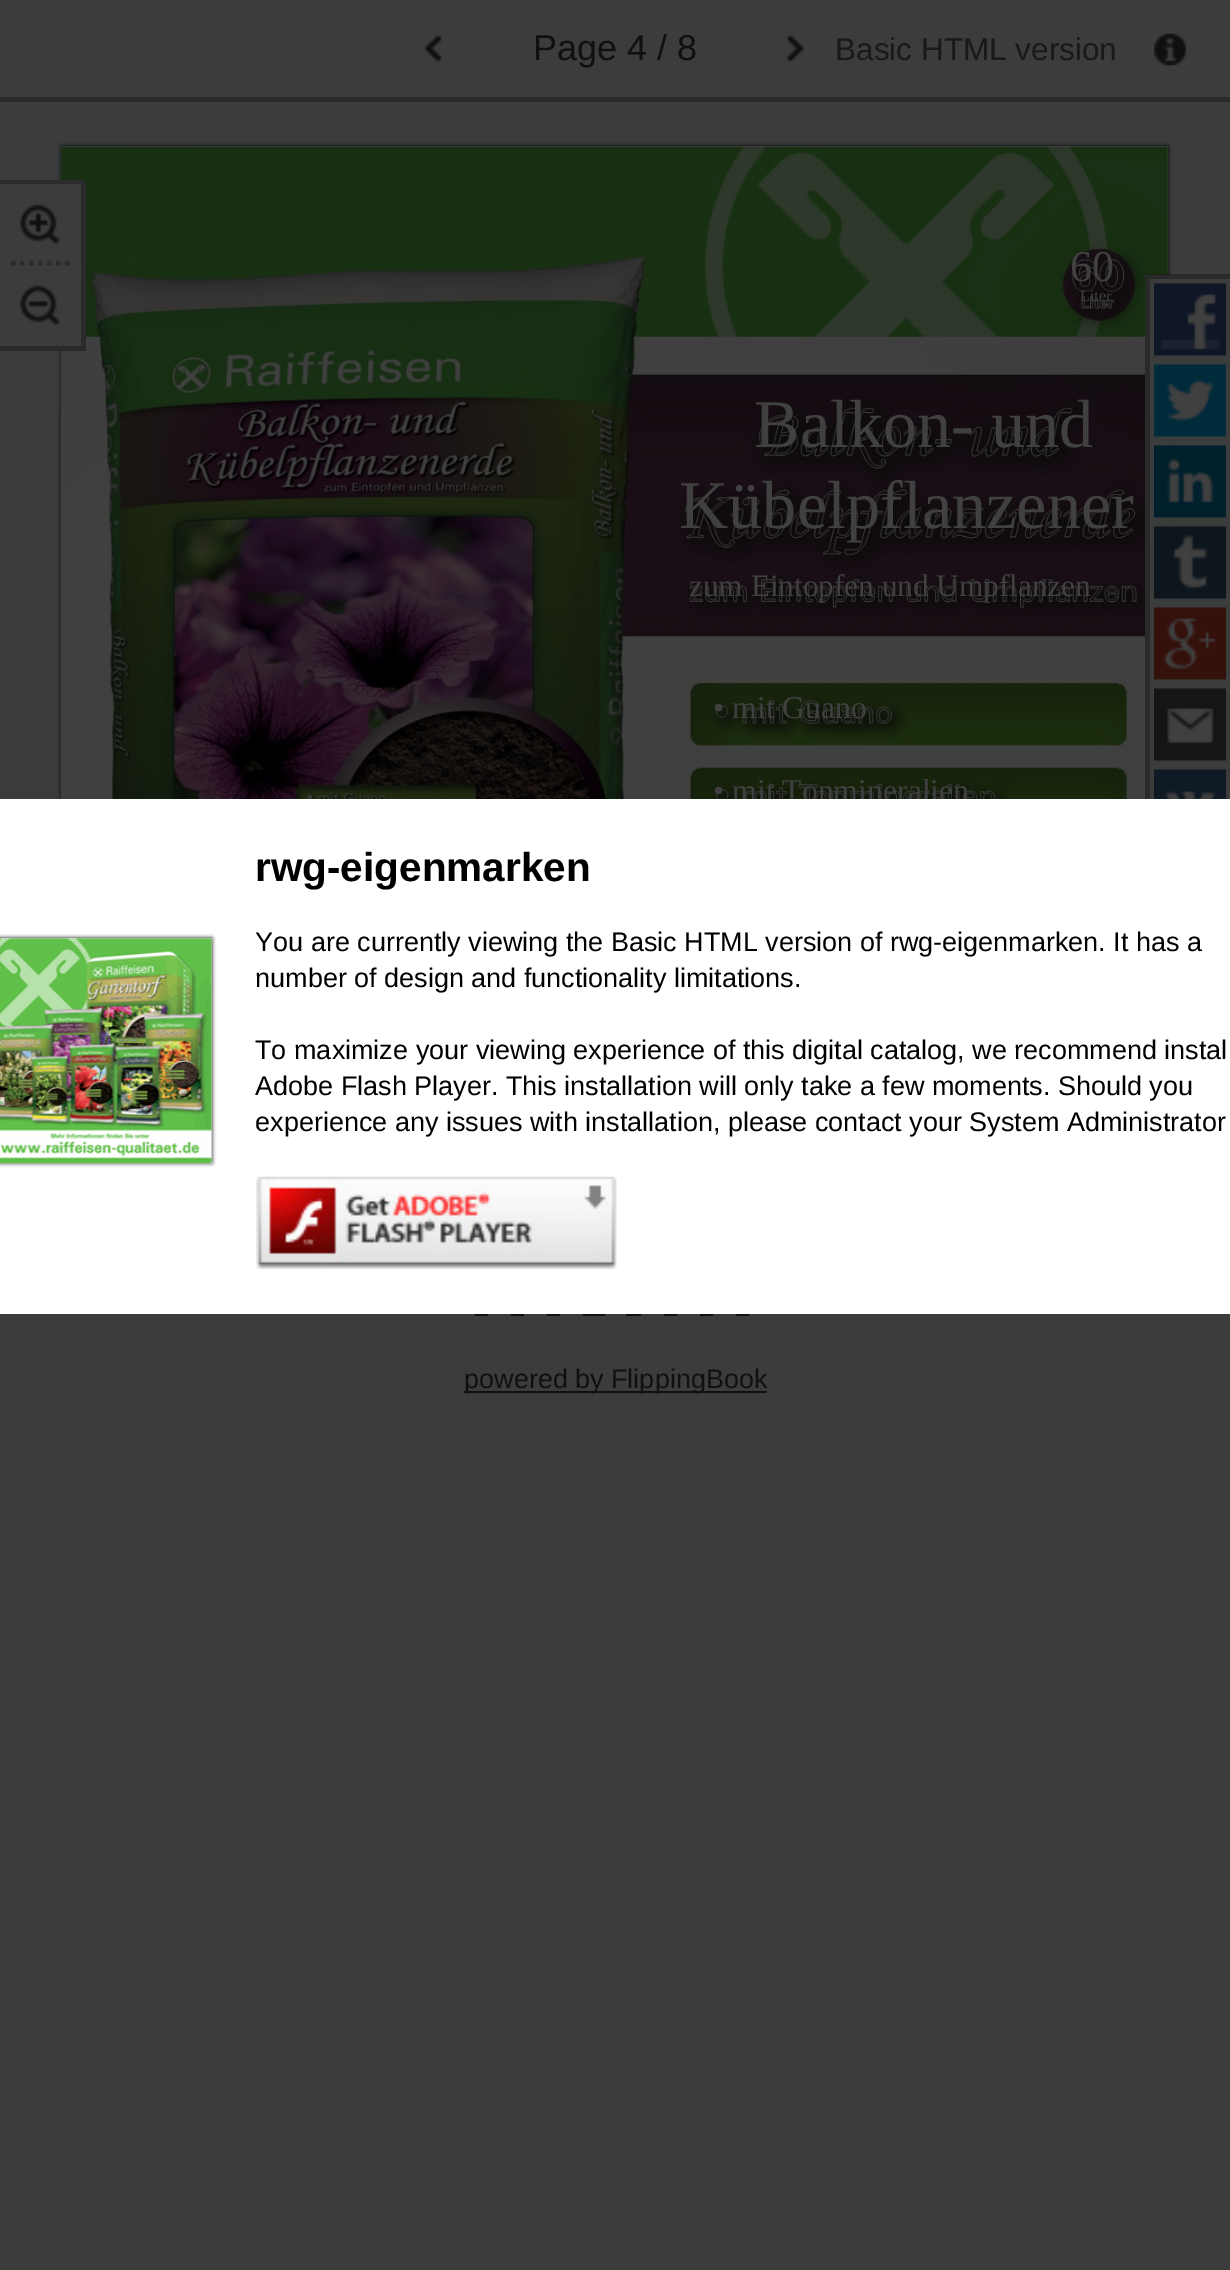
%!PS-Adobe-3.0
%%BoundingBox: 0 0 1230 2270
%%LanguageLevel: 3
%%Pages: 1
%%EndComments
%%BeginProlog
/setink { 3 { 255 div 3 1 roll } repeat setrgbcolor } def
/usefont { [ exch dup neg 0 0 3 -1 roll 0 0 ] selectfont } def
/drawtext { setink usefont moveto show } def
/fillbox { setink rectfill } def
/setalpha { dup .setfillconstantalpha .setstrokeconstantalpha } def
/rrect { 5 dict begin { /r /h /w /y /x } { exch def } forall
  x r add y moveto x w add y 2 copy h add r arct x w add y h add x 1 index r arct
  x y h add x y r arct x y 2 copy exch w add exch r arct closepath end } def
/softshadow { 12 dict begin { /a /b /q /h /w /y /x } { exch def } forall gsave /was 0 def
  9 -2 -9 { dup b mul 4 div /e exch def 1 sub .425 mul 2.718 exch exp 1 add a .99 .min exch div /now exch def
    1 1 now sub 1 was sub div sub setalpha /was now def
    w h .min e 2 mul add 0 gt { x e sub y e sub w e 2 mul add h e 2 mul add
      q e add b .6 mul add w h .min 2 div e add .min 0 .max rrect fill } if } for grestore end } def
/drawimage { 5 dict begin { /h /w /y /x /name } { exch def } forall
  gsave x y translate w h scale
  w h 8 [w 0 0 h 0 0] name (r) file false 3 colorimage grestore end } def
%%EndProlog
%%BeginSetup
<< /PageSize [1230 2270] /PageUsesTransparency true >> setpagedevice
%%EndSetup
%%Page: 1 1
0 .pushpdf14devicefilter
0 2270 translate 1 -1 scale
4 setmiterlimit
0 0 1230 2270 59 60 60 fillbox
0 97 1230 5 42 43 43 fillbox
(assets/img1.rgb) 424 35 18 27 drawimage
(Page 4 / 8) 533 60 /LiberationSans-Regular 36 16 16 17 drawtext
(assets/img2.rgb) 787 35 17 27 drawimage
(Basic HTML version) 835 60 /LiberationSans-Regular 31.5 25 25 25 drawtext
(assets/img3.rgb) 1154 33 32 33 drawimage
0 0 0 setink
61 146 1107 1107 0 2 1 softshadow
61 146 1107 129 64 64 64 fillbox
(assets/img13.rgb) 60 146 1108 653 drawimage
58 180 28 171 59 60 60 fillbox
42 43 43 setink
0 180 moveto 86 180 lineto 81 184 lineto 0 184 lineto closepath fill
0.4 setalpha
16 16 17 setink
86 180 moveto 86 351 lineto 81 346 lineto 81 184 lineto closepath fill
86 351 moveto 0 351 lineto 0 346 lineto 81 346 lineto closepath fill
1 setalpha
(assets/img4.rgb) 19 204 42 42 drawimage
42 43 43 setink
4.5 setlinewidth
[4.5 4.5] 0 setdash
11 263 moveto 70 263 lineto stroke
(assets/img5.rgb) 19 285 42 42 drawimage
1145 275 26 524 59 60 60 fillbox
0.4 setalpha
16 16 17 setink
1145 274 moveto 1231 274 lineto 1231 279 lineto 1150 279 lineto closepath fill
1145 850 moveto 1145 274 lineto 1150 279 lineto 1150 846 lineto closepath fill
1 setalpha
(assets/img6.rgb) 1154 283 72 74 drawimage
(assets/img7.rgb) 1154 364 72 74 drawimage
(assets/img8.rgb) 1154 445 72 74 drawimage
(assets/img9.rgb) 1154 526 72 74 drawimage
(assets/img10.rgb) 1154 607 72 74 drawimage
(assets/img11.rgb) 1154 688 72 74 drawimage
(assets/img12.rgb) 1154 769 72 30 drawimage
(60) 1070 281 /LiberationSerif-Regular 44 64 64 64 drawtext
(Liter) 1080 301 /LiberationSerif-Regular 16 64 64 64 drawtext
(Balkon- und) 754 447 /LiberationSerif-Regular 68.25 64 64 64 drawtext
(Kübelpflanzener) 679 528 /LiberationSerif-Regular 68.25 64 64 64 drawtext
(zum Eintopfen und Umpflanzen) 689 596 /LiberationSerif-Regular 31.25 64 64 64 drawtext
(• mit Guano) 713 718 /LiberationSerif-Regular 31.75 64 64 64 drawtext
(• mit Tonmineralien) 713 801 /LiberationSerif-Regular 31.75 64 64 64 drawtext
475 1314 13 2 16 16 17 fillbox
511 1314 13 2 16 16 17 fillbox
547 1314 13 2 16 16 17 fillbox
583 1314 22 2 16 16 17 fillbox
626 1314 15 2 16 16 17 fillbox
664 1314 13 2 16 16 17 fillbox
700 1314 13 2 16 16 17 fillbox
736 1314 13 2 16 16 17 fillbox
464 1391 139 2 16 16 17 fillbox
(powered by) 464 1388 /LiberationSans-Regular 27 16 16 17 drawtext
603 1391 164 2 16 16 17 fillbox
(FlippingBook) 611 1388 /LiberationSans-Regular 27 16 16 17 drawtext
0 799 1230 515 255 255 255 fillbox
0 0 0 setink
-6 938 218 225 0 2 1 softshadow
(assets/img14.rgb) 0 938 213 226 drawimage
(rwg-eigenmarken) 255 881 /LiberationSans-Bold 40.5 0 0 0 drawtext
(You are currently viewing the Basic HTML version of rwg-eigenmarken. It has a) 255 951 /LiberationSans-Regular 27 0 0 0 drawtext
(number of design and functionality limitations.) 255 987 /LiberationSans-Regular 27 0 0 0 drawtext
(To maximize your viewing experience of this digital catalog, we recommend instal) 255 1059 /LiberationSans-Regular 27 0 0 0 drawtext
(Adobe Flash Player. This installation will only take a few moments. Should you) 255 1095 /LiberationSans-Regular 27 0 0 0 drawtext
(experience any issues with installation, please contact your System Administrator) 255 1131 /LiberationSans-Regular 27 0 0 0 drawtext
(assets/img15.rgb) 256 1176 361 93 drawimage
.poppdf14devicefilter showpage
%%EOF
